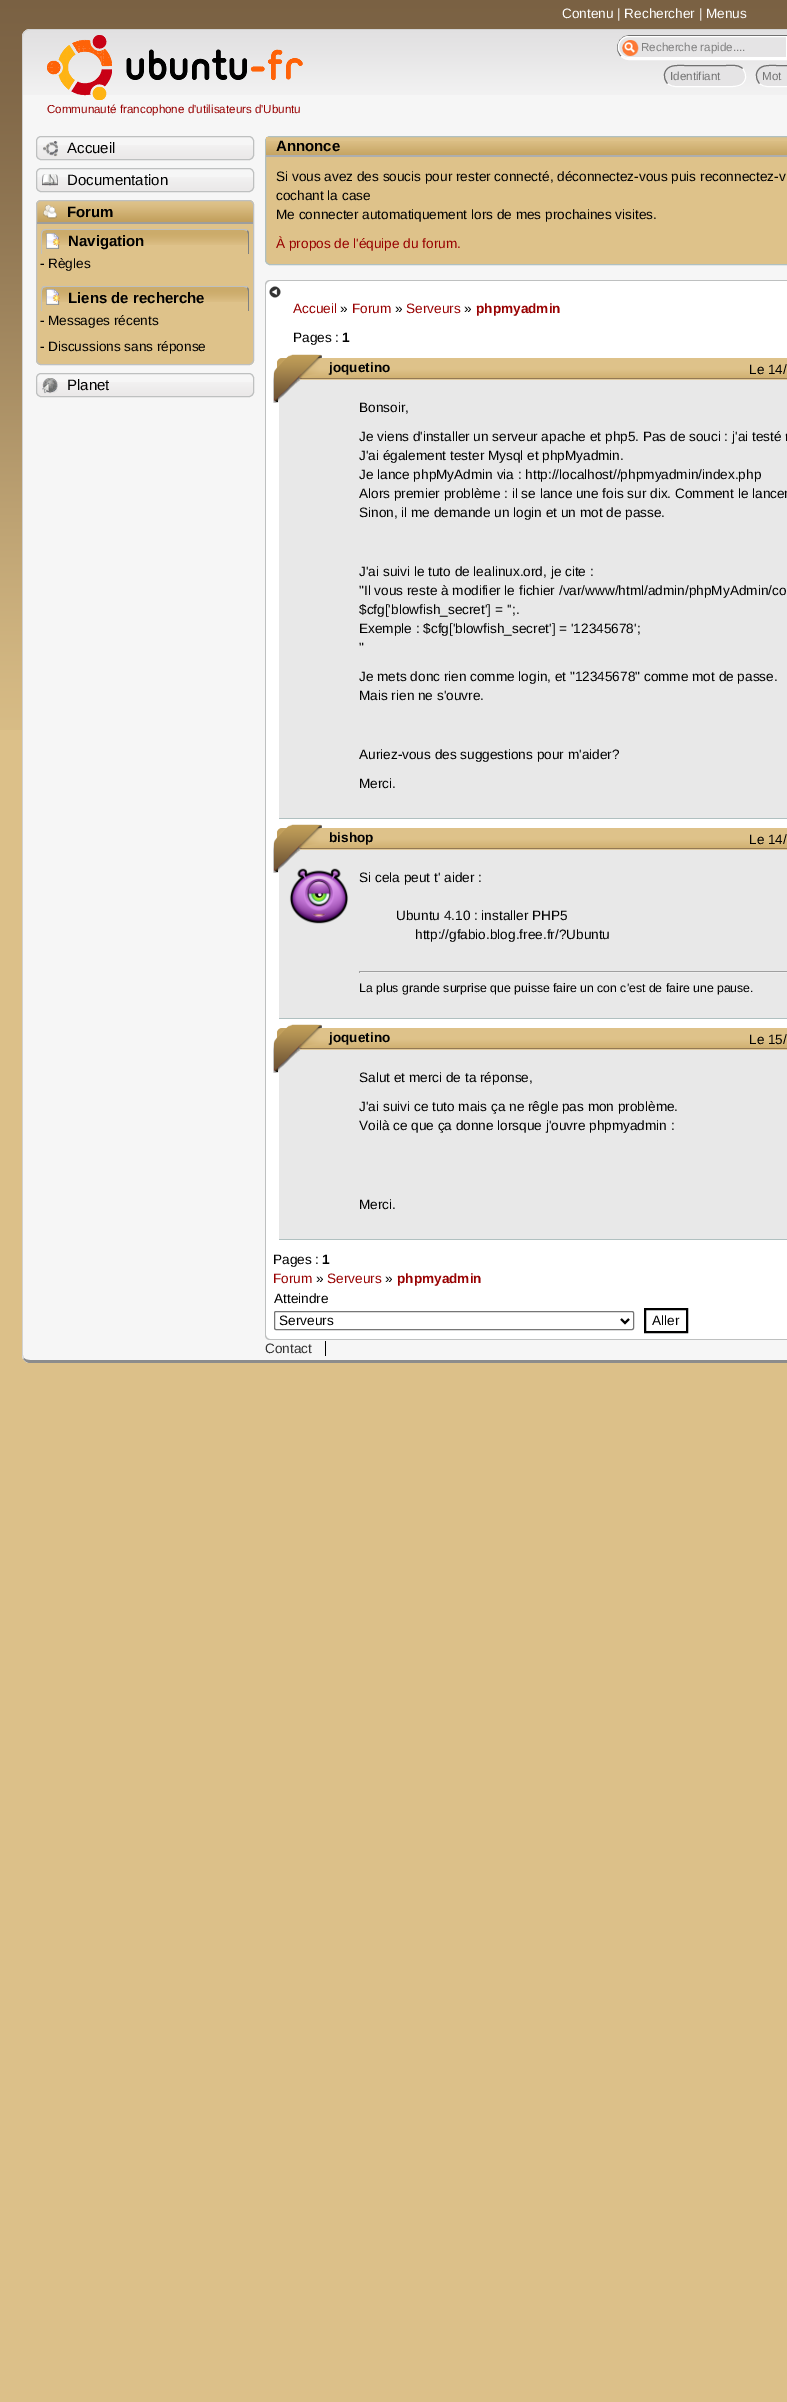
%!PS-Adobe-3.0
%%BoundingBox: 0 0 787 2402
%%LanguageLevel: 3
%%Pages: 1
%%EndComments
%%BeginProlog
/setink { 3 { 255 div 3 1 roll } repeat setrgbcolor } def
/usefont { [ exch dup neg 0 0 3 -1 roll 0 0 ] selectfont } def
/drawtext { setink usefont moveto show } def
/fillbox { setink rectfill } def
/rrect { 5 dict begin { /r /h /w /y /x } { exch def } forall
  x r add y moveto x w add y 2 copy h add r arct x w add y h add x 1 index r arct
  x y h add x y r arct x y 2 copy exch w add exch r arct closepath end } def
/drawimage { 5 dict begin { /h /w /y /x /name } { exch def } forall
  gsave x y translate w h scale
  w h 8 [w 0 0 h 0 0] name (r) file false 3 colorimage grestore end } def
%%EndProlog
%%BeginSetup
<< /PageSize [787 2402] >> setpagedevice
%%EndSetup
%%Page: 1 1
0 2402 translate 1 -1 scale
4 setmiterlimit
0 0 787 2402 220 192 137 fillbox
(assets/img1.rgb) 0 0 787 730 drawimage
(Contenu | Rechercher | Menus) 562 18 /LiberationSans-Regular 13.6 255 255 255 drawtext
246 246 246 setink
22 29 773 1334 8 rrect fill
(assets/img2.rgb) 22 30 765 65 drawimage
210 210 210 setink
30 29 moveto 28 29 26 30 24 32 curveto 25 32 lineto 26 31 28 30 30 30 curveto 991 30 lineto 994 31 lineto 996 31 lineto 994 30 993 29 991 29 curveto closepath fill
140 140 140 setink
30 1363 moveto 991 1363 lineto 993 1363 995 1362 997 1360 curveto 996 1358 lineto 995 1359 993 1360 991 1360 curveto 30 1360 lineto 27 1360 25 1359 24 1358 curveto 23 1359 lineto 25 1361 27 1363 30 1363 curveto closepath fill
210 210 210 setink
22 37 moveto 22 1355 lineto 23 1359 lineto 24 1358 lineto 23 1355 lineto 23 37 lineto 23 35 24 33 25 32 curveto 24 32 lineto 23 33 22 35 22 37 curveto closepath fill
255 255 255 setink
617 35 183 25 12.5 rrect fill
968 39 moveto 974 45 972 55.5 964 58.5 curveto 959.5 59.5 lineto 628.5 59.5 lineto 625.5 59 623 58 621 56 curveto stroke
113 113 113 setink
621 56 moveto 615 50 617 39.5 625 36.5 curveto 629.5 35.5 lineto 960.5 35.5 lineto 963.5 36 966 37 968 39 curveto stroke
229 228 229 setink
629 36 moveto 787 36 lineto 787 58 lineto 629 58 lineto 623 58 618 53 618 47 curveto 618 41 623 36 629 36 curveto closepath fill
(assets/img3.rgb) 622 40 17 16 drawimage
255 255 255 setink
629 36.5 moveto 786.5 36.5 lineto 786.5 57.5 lineto 629 57.5 lineto 623 57.5 618.5 53 618.5 47 curveto 618.5 41 623 36.5 629 36.5 curveto closepath stroke
(Recherche rapide....) 641 51 /LiberationSans-Regular 11.6 128 128 128 drawtext
229 228 229 setink
664 65 82 22 11 rrect fill
255 255 255 setink
742.5 68.5 moveto 745 71 746 74.5 745.5 78 curveto 743.5 88 732.5 86.5 725 86.5 curveto 685 86.5 lineto 679.5 86.5 672 88 667.5 83.5 curveto stroke
113 113 113 setink
667.5 83.5 moveto 665 81 664 77.5 664.5 74 curveto 666.5 64 677.5 65.5 685 65.5 curveto 725 65.5 lineto 730.5 65.5 738 64 742.5 68.5 curveto stroke
(Identifiant) 670 80 /LiberationSans-Regular 11.6 117 117 117 drawtext
229 228 229 setink
756 65 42 22 11 rrect fill
255 255 255 setink
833.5 68.5 moveto 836 71 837 74.5 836.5 78 curveto 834.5 88 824 86.5 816 86.5 curveto 777 86.5 lineto 771 86.5 764 88 759.5 83.5 curveto stroke
113 113 113 setink
759.5 83.5 moveto 757 81 756 77.5 756.5 74 curveto 758.5 64 769 65.5 777 65.5 curveto 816 65.5 lineto 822 65.5 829 64 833.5 68.5 curveto stroke
(Mot) 762 80 /LiberationSans-Regular 11.6 117 117 117 drawtext
(assets/img4.rgb) 47 35 256 65 drawimage
(Communauté francophone d'utilisateurs d'Ubuntu) 47 113 /LiberationSans-Regular 11.6 152 1 1 drawtext
(assets/img5.rgb) 36 145 218 14 drawimage
190 192 192 setink
36.5 136.5 217 23 4.5 rrect stroke
(assets/img6.rgb) 43 141 15 16 drawimage
(Accueil) 67 153 /LiberationSans-Regular 15 0 0 0 drawtext
(assets/img5.rgb) 36 177 218 14 drawimage
190 192 192 setink
36.5 168.5 217 23 4.5 rrect stroke
(assets/img7.rgb) 42 174 16 12 drawimage
(Documentation) 67 185 /LiberationSans-Regular 15 0 0 0 drawtext
222 194 138 setink
36 200 218 165 5 rrect fill
(assets/img8.rgb) 36 201 218 21 drawimage
190 192 192 setink
36.5 200.5 217 164 4.5 rrect stroke
(assets/img9.rgb) 43 204 14 15 drawimage
37 222 216 2 157 158 158 fillbox
(Forum) 67 217 /LiberationSans-Bold 15 0 0 0 drawtext
(assets/img10.rgb) 41 230 208 15 drawimage
190 192 192 setink
46 229 moveto 44 229 43 230 42 230 curveto 43 231 lineto 46 230 lineto 244 230 lineto 247 231 lineto 248 230 lineto 247 230 246 229 244 229 curveto closepath fill
127 128 128 setink
248 254 moveto 249 254 lineto 249 234 lineto 249 232.5 248.5 231 247.5 230.5 curveto 247 231 lineto 247.5 232 248 233 248 234 curveto closepath fill
190 192 192 setink
41 254 moveto 42 254 lineto 42 234 lineto 42 233 42.5 232 43 231 curveto 42.5 230.5 lineto 41.5 231 41 232.5 41 234 curveto closepath fill
(assets/img11.rgb) 45 233 15 16 drawimage
(Navigation) 68 246 /LiberationSans-Bold 15 0 0 0 drawtext
(-) 40 268 /LiberationSans-Regular 13.6 0 0 0 drawtext
(Règles) 48 268 /LiberationSans-Regular 13.6 0 0 0 drawtext
(assets/img10.rgb) 41 287 208 15 drawimage
190 192 192 setink
46 286 moveto 44 286 43 286 42 287 curveto 43 288 lineto 46 287 lineto 244 287 lineto 247 288 lineto 248 287 lineto 247 286 246 286 244 286 curveto closepath fill
127 128 128 setink
248 311 moveto 249 311 lineto 249 291 lineto 249 289.5 248.5 288 247.5 287.5 curveto 247 288 lineto 247.5 289 248 290 248 291 curveto closepath fill
190 192 192 setink
41 311 moveto 42 311 lineto 42 291 lineto 42 290 42.5 289 43 288 curveto 42.5 287.5 lineto 41.5 288 41 289.5 41 291 curveto closepath fill
(assets/img12.rgb) 45 289 15 16 drawimage
(Liens de recherche) 68 303 /LiberationSans-Bold 15 0 0 0 drawtext
(-) 40 325 /LiberationSans-Regular 13.6 0 0 0 drawtext
(Messages récents) 48 325 /LiberationSans-Regular 13.6 0 0 0 drawtext
(-) 40 351 /LiberationSans-Regular 13.6 0 0 0 drawtext
(Discussions sans réponse) 48 351 /LiberationSans-Regular 13.6 0 0 0 drawtext
(assets/img5.rgb) 36 382 218 14 drawimage
190 192 192 setink
36.5 373.5 217 23 4.5 rrect stroke
(assets/img13.rgb) 42 378 16 16 drawimage
(Planet) 67 390 /LiberationSans-Regular 15 0 0 0 drawtext
222 194 138 setink
265.5 136.5 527 128 4.5 rrect gsave fill grestore
176 192 192 setink
stroke
266 137 4 4 222 194 138 fillbox
(assets/img14.rgb) 266 141 521 14 drawimage
266 155 521 2 173 174 174 fillbox
(Annonce) 276 151 /LiberationSans-Bold 15 0 0 0 drawtext
(Si vous avez des soucis pour rester connecté, déconnectez-vous puis reconnectez-v) 276 181 /LiberationSans-Regular 13.6 0 0 0 drawtext
(cochant la case) 276 200 /LiberationSans-Regular 13.6 0 0 0 drawtext
(Me connecter automatiquement lors de mes prochaines visites.) 276 219 /LiberationSans-Regular 13.6 0 0 0 drawtext
(À propos de l'équipe du forum.) 276 248 /LiberationSans-Regular 13.6 152 1 1 drawtext
255 255 255 setink
270 281 moveto 787 281 lineto 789 281 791 283 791 285 curveto 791 1288 lineto 266 1288 lineto 266 285 lineto 266 283 268 281 270 281 curveto closepath fill
190 192 192 setink
270 280 moveto 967 280 lineto 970 280 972 282 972 285 curveto 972 1288 lineto 265 1288 lineto 265 285 lineto 265 282 267 280 270 280 curveto closepath 270 281 moveto 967 281 lineto 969 281 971 283 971 285 curveto 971 1288 lineto 266 1288 lineto 266 285 lineto 266 283 268 281 270 281 curveto closepath eofill
(assets/img15.rgb) 269 286 12 12 drawimage
(Accueil) 293 313 /LiberationSans-Regular 13.6 152 1 1 drawtext
(») 340 313 /LiberationSans-Regular 13.6 0 0 0 drawtext
(Forum) 352 313 /LiberationSans-Regular 13.6 152 1 1 drawtext
(») 395 313 /LiberationSans-Regular 13.6 0 0 0 drawtext
(Serveurs) 406 313 /LiberationSans-Regular 13.6 152 1 1 drawtext
(») 464 313 /LiberationSans-Regular 13.6 0 0 0 drawtext
(phpmyadmin) 476 313 /LiberationSans-Bold 13.6 152 1 1 drawtext
(Pages :) 293 342 /LiberationSans-Regular 13.6 0 0 0 drawtext
(1) 342 342 /LiberationSans-Bold 13.6 0 0 0 drawtext
279 380 508 438 232 232 232 fillbox
(assets/img16.rgb) 299 354 488 26 drawimage
176 192 192 setink
289 354 moveto 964 354 lineto 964 809 lineto 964 815 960 819 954 819 curveto 279 819 lineto 279 364 lineto 279 358 283 354 289 354 curveto closepath 289 354 moveto 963 354 lineto 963 809 lineto 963 814 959 818 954 818 curveto 279 818 lineto 279 364 lineto 279 358 283 354 289 354 curveto closepath eofill
(joquetino) 329 372 /LiberationSans-Bold 13.6 0 0 0 drawtext
(Bonsoir,) 359 412 /LiberationSans-Regular 13.6 0 0 0 drawtext
(Je viens d'installer un serveur apache et php5. Pas de souci : j'ai testé r) 359 441 /LiberationSans-Regular 13.6 0 0 0 drawtext
(J'ai également tester Mysql et phpMyadmin.) 359 460 /LiberationSans-Regular 13.6 0 0 0 drawtext
(Je lance phpMyAdmin via : http://localhost//phpmyadmin/index.php) 359 479 /LiberationSans-Regular 13.6 0 0 0 drawtext
(Alors premier problème : il se lance une fois sur dix. Comment le lancer) 359 498 /LiberationSans-Regular 13.6 0 0 0 drawtext
(Sinon, il me demande un login et un mot de passe.) 359 517 /LiberationSans-Regular 13.6 0 0 0 drawtext
(J'ai suivi le tuto de lealinux.ord, je cite :) 359 576 /LiberationSans-Regular 13.6 0 0 0 drawtext
("Il vous reste à modifier le fichier /var/www/html/admin/phpMyAdmin/co) 359 595 /LiberationSans-Regular 13.6 0 0 0 drawtext
($cfg['blowfish_secret'] = '';.) 359 614 /LiberationSans-Regular 13.6 0 0 0 drawtext
(Exemple : $cfg['blowfish_secret'] = '12345678';) 359 633 /LiberationSans-Regular 13.6 0 0 0 drawtext
(") 359 652 /LiberationSans-Regular 13.6 0 0 0 drawtext
(Je mets donc rien comme login, et "12345678" comme mot de passe.) 359 681 /LiberationSans-Regular 13.6 0 0 0 drawtext
(Mais rien ne s'ouvre.) 359 700 /LiberationSans-Regular 13.6 0 0 0 drawtext
(Auriez-vous des suggestions pour m'aider?) 359 759 /LiberationSans-Regular 13.6 0 0 0 drawtext
(Merci.) 359 788 /LiberationSans-Regular 13.6 0 0 0 drawtext
(assets/img17.rgb) 273 354 49 49 drawimage
(Le 14/) 749 374 /LiberationSans-Regular 13.5 0 0 0 drawtext
279 850 508 168 232 232 232 fillbox
(assets/img16.rgb) 299 824 488 26 drawimage
176 192 192 setink
289 824 moveto 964 824 lineto 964 1009 lineto 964 1015 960 1019 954 1019 curveto 279 1019 lineto 279 834 lineto 279 828 283 824 289 824 curveto closepath 289 824 moveto 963 824 lineto 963 1009 lineto 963 1014 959 1018 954 1018 curveto 279 1018 lineto 279 834 lineto 279 828 283 824 289 824 curveto closepath eofill
(bishop) 329 842 /LiberationSans-Bold 13.6 0 0 0 drawtext
(assets/img17.rgb) 273 824 49 49 drawimage
(assets/img18.rgb) 289 868 60 56 drawimage
(Si cela peut t' aider :) 359 882 /LiberationSans-Regular 13.6 0 0 0 drawtext
(Ubuntu 4.10 : installer PHP5) 396 920 /LiberationSans-Regular 13.6 0 0 0 drawtext
(http://gfabio.blog.free.fr/?Ubuntu) 415 939 /LiberationSans-Regular 13.6 0 0 0 drawtext
359 971 428 1 159 159 159 fillbox
359 972 428 1 238 238 238 fillbox
359 971 1 2 159 159 159 fillbox
(La plus grande surprise que puisse faire un con c'est de faire une pause.) 359 992 /LiberationSans-Regular 12.25 0 0 0 drawtext
(Le 14/) 749 844 /LiberationSans-Regular 13.5 0 0 0 drawtext
279 1050 508 189 232 232 232 fillbox
(assets/img16.rgb) 299 1024 488 26 drawimage
176 192 192 setink
289 1024 moveto 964 1024 lineto 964 1230 lineto 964 1236 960 1240 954 1240 curveto 279 1240 lineto 279 1034 lineto 279 1028 283 1024 289 1024 curveto closepath 289 1024 moveto 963 1024 lineto 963 1230 lineto 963 1235 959 1239 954 1239 curveto 279 1239 lineto 279 1034 lineto 279 1028 283 1024 289 1024 curveto closepath eofill
(joquetino) 329 1042 /LiberationSans-Bold 13.6 0 0 0 drawtext
(Salut et merci de ta réponse,) 359 1082 /LiberationSans-Regular 13.6 0 0 0 drawtext
(J'ai suivi ce tuto mais ça ne rêgle pas mon problème.) 359 1111 /LiberationSans-Regular 13.6 0 0 0 drawtext
(Voilà ce que ça donne lorsque j'ouvre phpmyadmin :) 359 1130 /LiberationSans-Regular 13.6 0 0 0 drawtext
(Merci.) 359 1209 /LiberationSans-Regular 13.6 0 0 0 drawtext
(assets/img17.rgb) 273 1024 49 49 drawimage
(Le 15/) 749 1044 /LiberationSans-Regular 13.5 0 0 0 drawtext
(Pages :) 273 1264 /LiberationSans-Regular 13.6 0 0 0 drawtext
(1) 322 1264 /LiberationSans-Bold 13.6 0 0 0 drawtext
(Forum) 273 1283 /LiberationSans-Regular 13.6 152 1 1 drawtext
(») 316 1283 /LiberationSans-Regular 13.6 0 0 0 drawtext
(Serveurs) 327 1283 /LiberationSans-Regular 13.6 152 1 1 drawtext
(») 385 1283 /LiberationSans-Regular 13.6 0 0 0 drawtext
(phpmyadmin) 397 1283 /LiberationSans-Bold 13.6 152 1 1 drawtext
266 1288 521 46 255 255 255 fillbox
265 1288 1 46 190 192 192 fillbox
(Atteindre) 274 1303 /LiberationSans-Regular 13.6 0 0 0 drawtext
118 118 118 setink
274.5 1311.5 359 18 1.5 rrect stroke
0 0 0 setink
2 setlinewidth
621 1319 moveto 625 1323 lineto 629 1319 lineto stroke
(Serveurs) 279 1325 /LiberationSans-Regular 13.6 0 0 0 drawtext
645 1309 42 23 rectstroke
(Aller) 652 1325 /LiberationSans-Regular 13.6 0 0 0 drawtext
255 255 255 setink
266 1334 moveto 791 1334 lineto 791 1335 lineto 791 1337 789 1339 787 1339 curveto 270 1339 lineto 268 1339 266 1337 266 1335 curveto closepath fill
190 192 192 setink
265 1334 moveto 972 1334 lineto 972 1335 lineto 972 1338 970 1340 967 1340 curveto 270 1340 lineto 267 1340 265 1338 265 1335 curveto closepath 266 1334 moveto 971 1334 lineto 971 1337 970 1339 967 1339 curveto 270 1339 lineto 268 1339 266 1337 266 1335 curveto closepath eofill
(Contact) 265 1353 /LiberationSans-Regular 13.6 50 50 50 drawtext
325 1341 1 15 0 0 0 fillbox
showpage
%%EOF
